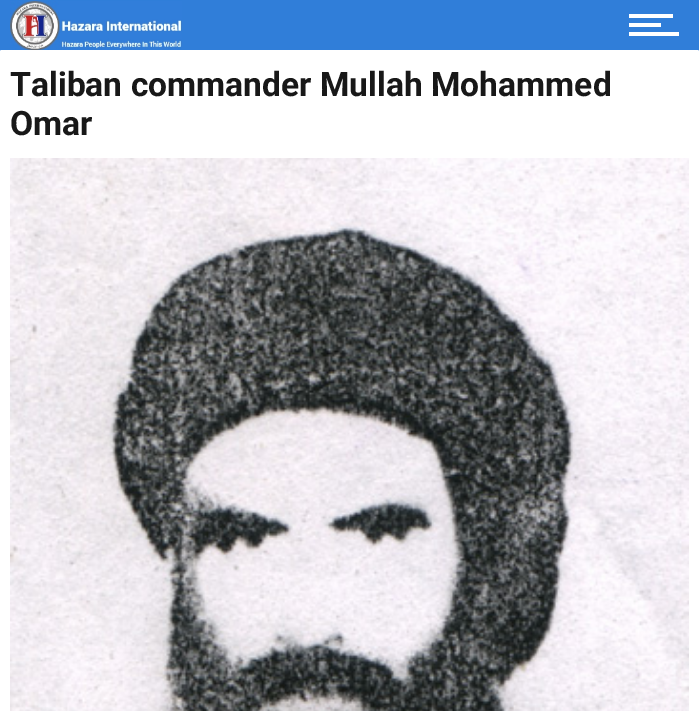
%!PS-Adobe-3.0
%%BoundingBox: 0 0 699 711
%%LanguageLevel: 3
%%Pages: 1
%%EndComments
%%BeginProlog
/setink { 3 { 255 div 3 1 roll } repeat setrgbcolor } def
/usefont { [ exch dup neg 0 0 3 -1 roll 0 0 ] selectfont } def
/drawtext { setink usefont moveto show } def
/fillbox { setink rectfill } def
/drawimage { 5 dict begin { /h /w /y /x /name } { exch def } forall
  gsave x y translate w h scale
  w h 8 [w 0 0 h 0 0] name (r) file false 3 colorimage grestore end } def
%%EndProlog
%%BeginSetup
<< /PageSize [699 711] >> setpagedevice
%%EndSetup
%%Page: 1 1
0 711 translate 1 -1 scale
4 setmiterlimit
0 0 699 711 255 255 255 fillbox
0 0 699 50 48 126 217 fillbox
3 48 moveto 696 48 lineto 697.5 48 699 49.5 699 51 curveto 699 50 lineto 0 50 lineto 0 51 lineto 0 49.5 1.5 48 3 48 curveto closepath fill
(assets/img1.rgb) 10 0 172 50 drawimage
629 32 50 4 255 255 255 fillbox
629 23 32 4 255 255 255 fillbox
629 14 44 4 255 255 255 fillbox
(Taliban commander Mullah Mohammed) 10 96 /Roboto-Bold 33.6 24 24 24 drawtext
(Omar) 10 135 /Roboto-Bold 33.6 24 24 24 drawtext
(assets/img2.rgb) 10 158 679 553 drawimage
showpage
%%EOF
